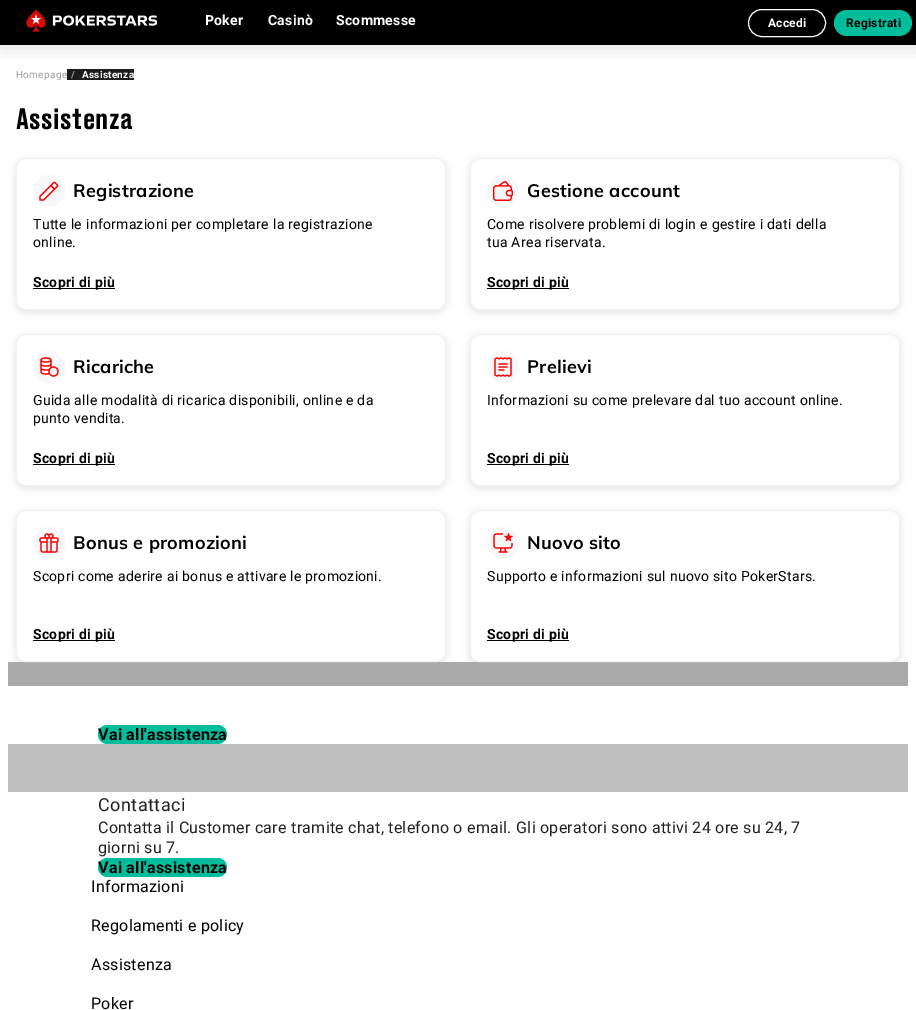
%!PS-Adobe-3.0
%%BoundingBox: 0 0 916 1010
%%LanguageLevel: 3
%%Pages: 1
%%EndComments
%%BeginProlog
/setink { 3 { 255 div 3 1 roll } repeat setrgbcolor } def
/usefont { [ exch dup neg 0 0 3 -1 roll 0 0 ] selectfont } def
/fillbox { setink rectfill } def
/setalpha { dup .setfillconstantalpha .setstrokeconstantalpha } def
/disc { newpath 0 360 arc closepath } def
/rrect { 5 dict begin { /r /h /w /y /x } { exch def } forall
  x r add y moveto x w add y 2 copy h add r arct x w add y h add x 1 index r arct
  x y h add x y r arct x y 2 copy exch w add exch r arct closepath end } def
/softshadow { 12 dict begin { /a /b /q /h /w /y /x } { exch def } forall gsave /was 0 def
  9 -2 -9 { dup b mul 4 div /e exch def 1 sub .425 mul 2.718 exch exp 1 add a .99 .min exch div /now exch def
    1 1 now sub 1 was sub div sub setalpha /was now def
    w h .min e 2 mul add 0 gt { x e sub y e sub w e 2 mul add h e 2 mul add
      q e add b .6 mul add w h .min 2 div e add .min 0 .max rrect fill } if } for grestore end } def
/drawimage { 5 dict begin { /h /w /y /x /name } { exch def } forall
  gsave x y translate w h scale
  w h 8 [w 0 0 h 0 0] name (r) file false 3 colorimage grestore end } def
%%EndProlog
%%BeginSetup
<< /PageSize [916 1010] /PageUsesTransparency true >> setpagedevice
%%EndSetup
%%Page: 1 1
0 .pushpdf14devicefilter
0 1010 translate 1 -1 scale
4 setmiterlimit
0 0 916 1010 255 255 255 fillbox
0 0 916 45 0 0 0 fillbox
gsave
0 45 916 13 rectclip
0 2 916 45 0 10 0.14 softshadow
grestore
(assets/img1.rgb) 26 9 131 23 drawimage
/Roboto-Bold 14 usefont
255 255 255 setink
205 25 moveto 0.28 0 (Poker) ashow
268 25 moveto 0.28 0 (Casinò) ashow
336 25 moveto 0.28 0 (Scommesse) ashow
748.5 9.5 77 27 13.5 rrect stroke
/Roboto-Bold 12 usefont
768 27 moveto 0.28 0 (Accedi) ashow
2 189 156 setink
834 10 78 26 13 rrect fill
0 0 0 setink
846 27 moveto 0.28 0 (Registrati) ashow
/Roboto-Regular 10 usefont
153 153 153 setink
16 78 moveto 0.28 0 (Homepage) ashow
67 69 67 11 28 28 28 fillbox
/Roboto-Bold 10 usefont
153 153 153 setink
71 78 moveto 0.28 0 (/) ashow
255 255 255 setink
82 78 moveto 0.28 0 (Assistenza) ashow
/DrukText-Medium 28 usefont
0 0 0 setink
16 129 moveto 0.5 0 (Assistenza) ashow
16 160 430 152 10 4 0.12 softshadow
255 255 255 setink
16.5 158.5 429 151 9.5 rrect gsave fill grestore
242 242 242 setink
stroke
248 248 248 setink
49 191 16 disc fill
(assets/img2.rgb) 39 181 20 20 drawimage
/Muli-Bold 18 usefont
0 0 0 setink
73 197 moveto 0.28 0 (Registrazione) ashow
/Roboto-Regular 14 usefont
33 229 moveto 0.28 0 (Tutte le informazioni per completare la registrazione) ashow
33 247 moveto 0.28 0 (online.) ashow
33 288 82 1 0 0 0 fillbox
/Roboto-Bold 14 usefont
33 287 moveto 0.28 0 (Scopri di più) ashow
470 160 430 152 10 4 0.12 softshadow
255 255 255 setink
470.5 158.5 429 151 9.5 rrect gsave fill grestore
242 242 242 setink
stroke
248 248 248 setink
503 191 16 disc fill
(assets/img3.rgb) 493 181 20 20 drawimage
/Muli-Bold 18 usefont
0 0 0 setink
527 197 moveto 0.28 0 (Gestione account) ashow
/Roboto-Regular 14 usefont
487 229 moveto 0.28 0 (Come risolvere problemi di login e gestire i dati della) ashow
487 247 moveto 0.28 0 (tua Area riservata.) ashow
487 288 82 1 0 0 0 fillbox
/Roboto-Bold 14 usefont
487 287 moveto 0.28 0 (Scopri di più) ashow
16 336 430 152 10 4 0.12 softshadow
255 255 255 setink
16.5 334.5 429 151 9.5 rrect gsave fill grestore
242 242 242 setink
stroke
248 248 248 setink
49 367 16 disc fill
(assets/img4.rgb) 40 357 19 20 drawimage
/Muli-Bold 18 usefont
0 0 0 setink
73 373 moveto 0.28 0 (Ricariche) ashow
/Roboto-Regular 14 usefont
33 405 moveto 0.28 0 (Guida alle modalità di ricarica disponibili, online e da) ashow
33 423 moveto 0.28 0 (punto vendita.) ashow
33 464 82 1 0 0 0 fillbox
/Roboto-Bold 14 usefont
33 463 moveto 0.28 0 (Scopri di più) ashow
470 336 430 152 10 4 0.12 softshadow
255 255 255 setink
470.5 334.5 429 151 9.5 rrect gsave fill grestore
242 242 242 setink
stroke
248 248 248 setink
503 367 16 disc fill
(assets/img5.rgb) 494 357 18 20 drawimage
/Muli-Bold 18 usefont
0 0 0 setink
527 373 moveto 0.28 0 (Prelievi) ashow
/Roboto-Regular 14 usefont
487 405 moveto 0.28 0 (Informazioni su come prelevare dal tuo account online.) ashow
487 464 82 1 0 0 0 fillbox
/Roboto-Bold 14 usefont
487 463 moveto 0.28 0 (Scopri di più) ashow
8 662 900 24 170 170 170 fillbox
gsave
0 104 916 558 rectclip
0 0 0 setink
16 512 430 152 10 4 0.12 softshadow
grestore
255 255 255 setink
16.5 510.5 429 151 9.5 rrect gsave fill grestore
242 242 242 setink
stroke
248 248 248 setink
49 543 16 disc fill
(assets/img6.rgb) 39 533 20 20 drawimage
/Muli-Bold 18 usefont
0 0 0 setink
73 549 moveto 0.28 0 (Bonus e promozioni) ashow
/Roboto-Regular 14 usefont
33 581 moveto 0.28 0 (Scopri come aderire ai bonus e attivare le promozioni.) ashow
33 640 82 1 0 0 0 fillbox
/Roboto-Bold 14 usefont
33 639 moveto 0.28 0 (Scopri di più) ashow
gsave
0 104 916 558 rectclip
470 512 430 152 10 4 0.12 softshadow
grestore
255 255 255 setink
470.5 510.5 429 151 9.5 rrect gsave fill grestore
242 242 242 setink
stroke
248 248 248 setink
503 543 16 disc fill
(assets/img7.rgb) 493 532 20 21 drawimage
/Muli-Bold 18 usefont
0 0 0 setink
527 549 moveto 0.28 0 (Nuovo sito) ashow
/Roboto-Regular 14 usefont
487 581 moveto 0.28 0 (Supporto e informazioni sul nuovo sito PokerStars.) ashow
487 640 82 1 0 0 0 fillbox
/Roboto-Bold 14 usefont
487 639 moveto 0.28 0 (Scopri di più) ashow
2 189 156 setink
98 725 129 19 9.5 rrect fill
/Roboto-Bold 16 usefont
0 0 0 setink
98 740 moveto 0.28 0 (Vai all'assistenza) ashow
8 744 900 48 191 191 191 fillbox
/Roboto-Regular 18 usefont
34 34 34 setink
98 811 moveto 0.5 0 (Contattaci) ashow
/Roboto-Regular 16 usefont
98 833 moveto 0.28 0 (Contatta il Customer care tramite chat, telefono o email. Gli operatori sono attivi 24 ore su 24, 7) ashow
98 853 moveto 0.28 0 (giorni su 7.) ashow
2 189 156 setink
98 858 129 19 9.5 rrect fill
/Roboto-Bold 16 usefont
0 0 0 setink
98 873 moveto 0.28 0 (Vai all'assistenza) ashow
/Roboto-Regular 16 usefont
91 892 moveto 0.28 0 (Informazioni) ashow
91 931 moveto 0.28 0 (Regolamenti e policy) ashow
91 970 moveto 0.28 0 (Assistenza) ashow
91 1009 moveto 0.28 0 (Poker) ashow
.poppdf14devicefilter showpage
%%EOF
